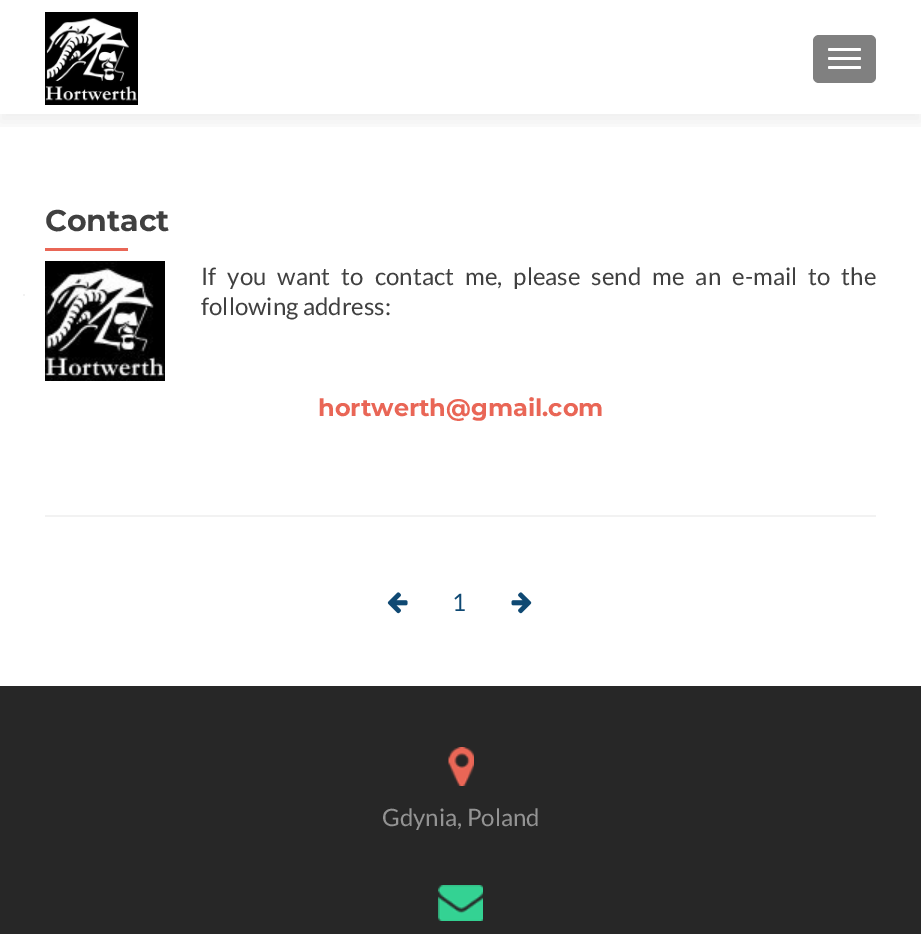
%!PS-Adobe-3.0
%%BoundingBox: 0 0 921 934
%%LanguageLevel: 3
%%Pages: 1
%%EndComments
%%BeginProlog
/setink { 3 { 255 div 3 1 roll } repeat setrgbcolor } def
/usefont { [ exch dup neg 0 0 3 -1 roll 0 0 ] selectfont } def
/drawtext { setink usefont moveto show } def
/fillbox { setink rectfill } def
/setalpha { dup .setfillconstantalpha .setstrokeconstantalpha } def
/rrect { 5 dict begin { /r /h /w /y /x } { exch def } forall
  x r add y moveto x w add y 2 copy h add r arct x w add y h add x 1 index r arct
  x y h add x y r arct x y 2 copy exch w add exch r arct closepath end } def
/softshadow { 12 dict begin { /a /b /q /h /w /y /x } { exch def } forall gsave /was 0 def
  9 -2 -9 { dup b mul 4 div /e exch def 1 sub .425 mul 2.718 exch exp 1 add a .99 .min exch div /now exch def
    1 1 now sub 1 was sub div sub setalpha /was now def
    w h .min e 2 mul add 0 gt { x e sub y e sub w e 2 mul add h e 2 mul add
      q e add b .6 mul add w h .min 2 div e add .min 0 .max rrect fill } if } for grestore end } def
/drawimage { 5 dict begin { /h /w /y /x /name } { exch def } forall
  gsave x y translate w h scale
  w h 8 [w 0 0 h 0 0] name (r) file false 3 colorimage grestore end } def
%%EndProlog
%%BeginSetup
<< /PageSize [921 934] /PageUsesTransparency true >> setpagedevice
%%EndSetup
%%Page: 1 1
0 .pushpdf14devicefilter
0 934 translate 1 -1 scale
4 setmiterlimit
0 0 921 934 255 255 255 fillbox
gsave
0 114 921 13 rectclip
50 50 50 setink
0 8 921 114 0 8 0.08 softshadow
grestore
(assets/img1.rgb) 45 12 93 93 drawimage
128 128 128 setink
813 35 63 48 6 rrect fill
255 255 255 setink
828 48 33 3 1.5 rrect fill
828 57 33 3 1.5 rrect fill
828 66 33 3 1.5 rrect fill
45 515 831 2 242 242 242 fillbox
(Contact) 45 231 /Montserrat-Thin 30 64 64 64 drawtext
45 248 83 3 233 102 86 fillbox
(assets/img2.rgb) 45 261 120 120 drawimage
/Lato-Regular 24 usefont
64 64 64 setink
201 285 moveto 6.4 0 32 (If you want to contact me, please send me an e-mail to the) widthshow
(following address:) 201 315 /Lato-Regular 24 64 64 64 drawtext
(hortwerth@gmail.com) 318 416 /Montserrat-Thin 24 233 102 86 drawtext
23 294 2 2 242 242 242 fillbox
(assets/img3.rgb) 387 592 21 22 drawimage
(1) 452 611 /Lato-Regular 24 15 73 115 drawtext
(assets/img4.rgb) 511 592 21 22 drawimage
0 686 921 248 39 39 39 fillbox
(assets/img5.rgb) 448 747 26 39 drawimage
(Gdynia, Poland) 382 826 /Lato-Regular 24 147 147 147 drawtext
(assets/img6.rgb) 438 885 45 36 drawimage
.poppdf14devicefilter showpage
%%EOF
